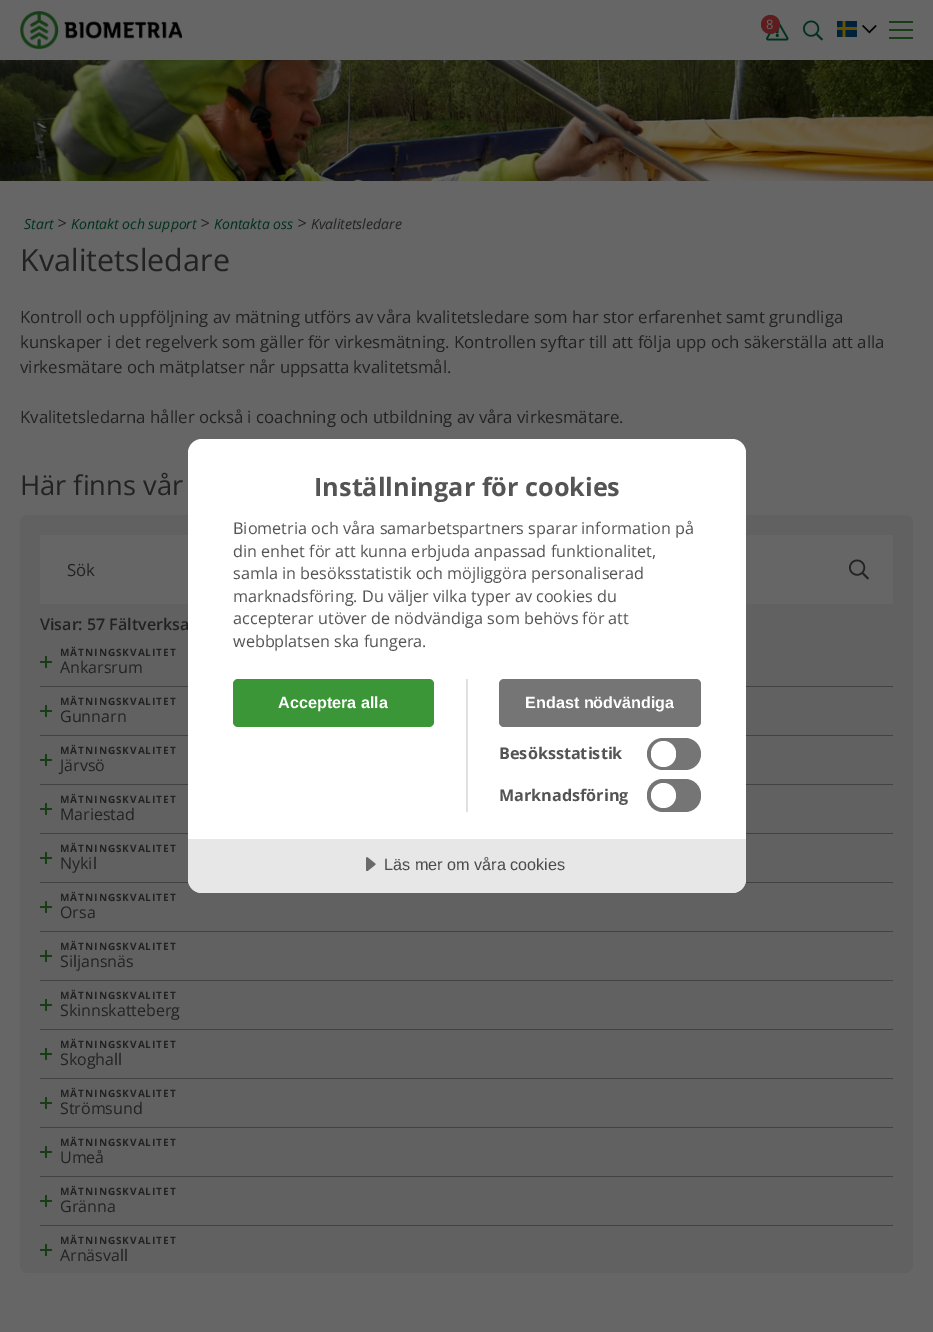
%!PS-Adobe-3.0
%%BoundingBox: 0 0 933 1332
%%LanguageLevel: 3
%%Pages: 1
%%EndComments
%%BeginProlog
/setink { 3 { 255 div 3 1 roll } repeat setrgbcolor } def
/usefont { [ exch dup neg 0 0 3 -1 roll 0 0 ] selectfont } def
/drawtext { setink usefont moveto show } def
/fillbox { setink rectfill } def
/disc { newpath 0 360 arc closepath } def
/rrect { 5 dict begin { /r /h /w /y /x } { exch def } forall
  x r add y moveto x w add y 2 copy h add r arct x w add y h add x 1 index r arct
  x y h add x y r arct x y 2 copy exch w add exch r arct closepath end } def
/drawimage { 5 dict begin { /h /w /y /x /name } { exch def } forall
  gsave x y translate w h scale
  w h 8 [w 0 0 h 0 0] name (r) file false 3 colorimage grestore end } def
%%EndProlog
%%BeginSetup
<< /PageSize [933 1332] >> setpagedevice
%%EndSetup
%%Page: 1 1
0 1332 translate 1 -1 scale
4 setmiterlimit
0 0 933 1332 102 102 102 fillbox
(assets/img1.rgb) 20 11 162 38 drawimage
24 60 22 setink
889 21 24 2 1 rrect fill
889 29 24 2 1 rrect fill
889 37 24 2 1 rrect fill
(assets/img2.rgb) 766 20 23 21 drawimage
93 28 29 setink
770.5 24.5 9.5 disc fill
(8) 766 29 /OpenSans-Regular 13 102 102 102 drawtext
(assets/img3.rgb) 803 20 20 21 drawimage
(assets/img4.rgb) 837 21 20 16 drawimage
(assets/img5.rgb) 862 25 15 9 drawimage
(assets/img6.rgb) 0 60 933 121 drawimage
(Start) 24 229 /OpenSans-Italic 14 0 49 28 drawtext
(>) 57 229 /OpenSans-Italic 16.8 34 34 34 drawtext
(Kontakt och support) 71 229 /OpenSans-Italic 14 0 49 28 drawtext
(>) 200 229 /OpenSans-Italic 16.8 34 34 34 drawtext
(Kontakta oss) 214 229 /OpenSans-Italic 14 0 49 28 drawtext
(>) 297 229 /OpenSans-Italic 16.8 34 34 34 drawtext
(Kvalitetsledare) 311 229 /OpenSans-Italic 14 34 34 34 drawtext
(Kvalitetsledare) 20 271 /OpenSans-Regular 30.5 34 34 34 drawtext
(Kontroll och uppföljning av mätning utförs av våra kvalitetsledare som har stor erfarenhet samt grundliga) 20 323 /OpenSans-Regular 16.8 34 34 34 drawtext
(kunskaper i det regelverk som gäller för virkesmätning. Kontrollen syftar till att följa upp och säkerställa att alla) 20 348 /OpenSans-Regular 16.8 34 34 34 drawtext
(virkesmätare och mätplatser når uppsatta kvalitetsmål.) 20 373 /OpenSans-Regular 16.8 34 34 34 drawtext
(Kvalitetsledarna håller också i coachning och utbildning av våra virkesmätare.) 20 423 /OpenSans-Regular 16.8 34 34 34 drawtext
(Här finns vår) 20 495 /OpenSans-Regular 27.25 34 34 34 drawtext
97 97 97 setink
20 515 893 758 8 rrect fill
40 535 853 69 102 102 102 fillbox
(Sök) 67 576 /OpenSans-Regular 16.8 34 34 34 drawtext
(assets/img7.rgb) 849 559 20 21 drawimage
(Visar: 57 Fältverksa) 40 630 /OpenSans-SemiBold 16 34 34 34 drawtext
40 686 853 1 66 66 66 fillbox
(assets/img8.rgb) 40 656 12 12 drawimage
/OpenSans-Bold 10 usefont
34 34 34 setink
60 656 moveto 1 0 (MÄTNINGSKVALITET) ashow
(Ankarsrum) 60 673 /OpenSans-Regular 16 34 34 34 drawtext
40 735 853 1 66 66 66 fillbox
(assets/img8.rgb) 40 705 12 12 drawimage
/OpenSans-Bold 10 usefont
34 34 34 setink
60 705 moveto 1 0 (MÄTNINGSKVALITET) ashow
(Gunnarn) 60 722 /OpenSans-Regular 16 34 34 34 drawtext
40 784 853 1 66 66 66 fillbox
(assets/img8.rgb) 40 754 12 12 drawimage
/OpenSans-Bold 10 usefont
34 34 34 setink
60 754 moveto 1 0 (MÄTNINGSKVALITET) ashow
(Järvsö) 60 771 /OpenSans-Regular 16 34 34 34 drawtext
40 833 853 1 66 66 66 fillbox
(assets/img8.rgb) 40 803 12 12 drawimage
/OpenSans-Bold 10 usefont
34 34 34 setink
60 803 moveto 1 0 (MÄTNINGSKVALITET) ashow
(Mariestad) 60 820 /OpenSans-Regular 16 34 34 34 drawtext
40 882 853 1 66 66 66 fillbox
(assets/img8.rgb) 40 852 12 12 drawimage
/OpenSans-Bold 10 usefont
34 34 34 setink
60 852 moveto 1 0 (MÄTNINGSKVALITET) ashow
(Nykil) 60 869 /OpenSans-Regular 16 34 34 34 drawtext
40 931 853 1 66 66 66 fillbox
(assets/img8.rgb) 40 901 12 12 drawimage
/OpenSans-Bold 10 usefont
34 34 34 setink
60 901 moveto 1 0 (MÄTNINGSKVALITET) ashow
(Orsa) 60 918 /OpenSans-Regular 16 34 34 34 drawtext
40 980 853 1 66 66 66 fillbox
(assets/img8.rgb) 40 950 12 12 drawimage
/OpenSans-Bold 10 usefont
34 34 34 setink
60 950 moveto 1 0 (MÄTNINGSKVALITET) ashow
(Siljansnäs) 60 967 /OpenSans-Regular 16 34 34 34 drawtext
40 1029 853 1 66 66 66 fillbox
(assets/img8.rgb) 40 999 12 12 drawimage
/OpenSans-Bold 10 usefont
34 34 34 setink
60 999 moveto 1 0 (MÄTNINGSKVALITET) ashow
(Skinnskatteberg) 60 1016 /OpenSans-Regular 16 34 34 34 drawtext
40 1078 853 1 66 66 66 fillbox
(assets/img8.rgb) 40 1048 12 12 drawimage
/OpenSans-Bold 10 usefont
34 34 34 setink
60 1048 moveto 1 0 (MÄTNINGSKVALITET) ashow
(Skoghall) 60 1065 /OpenSans-Regular 16 34 34 34 drawtext
40 1127 853 1 66 66 66 fillbox
(assets/img8.rgb) 40 1097 12 12 drawimage
/OpenSans-Bold 10 usefont
34 34 34 setink
60 1097 moveto 1 0 (MÄTNINGSKVALITET) ashow
(Strömsund) 60 1114 /OpenSans-Regular 16 34 34 34 drawtext
40 1176 853 1 66 66 66 fillbox
(assets/img8.rgb) 40 1146 12 12 drawimage
/OpenSans-Bold 10 usefont
34 34 34 setink
60 1146 moveto 1 0 (MÄTNINGSKVALITET) ashow
(Umeå) 60 1163 /OpenSans-Regular 16 34 34 34 drawtext
40 1225 853 1 66 66 66 fillbox
(assets/img8.rgb) 40 1195 12 12 drawimage
/OpenSans-Bold 10 usefont
34 34 34 setink
60 1195 moveto 1 0 (MÄTNINGSKVALITET) ashow
(Gränna) 60 1212 /OpenSans-Regular 16 34 34 34 drawtext
(assets/img8.rgb) 40 1244 12 12 drawimage
/OpenSans-Bold 10 usefont
60 1244 moveto 1 0 (MÄTNINGSKVALITET) ashow
(Arnäsvall) 60 1261 /OpenSans-Regular 16 34 34 34 drawtext
255 255 255 setink
188 439 558 454 14 rrect fill
(Inställningar för cookies) 314 496 /OpenSans-Bold 25.25 84 84 84 drawtext
(Biometria och våra samarbetspartners sparar information på) 233 534 /OpenSans-Regular 16.2 84 84 84 drawtext
(din enhet för att kunna erbjuda anpassad funktionalitet,) 233 557 /OpenSans-Regular 16.2 84 84 84 drawtext
(samla in besöksstatistik och möjliggöra personaliserad) 233 579 /OpenSans-Regular 16.2 84 84 84 drawtext
(marknadsföring. Du väljer vilka typer av cookies du) 233 602 /OpenSans-Regular 16.2 84 84 84 drawtext
(accepterar utöver de nödvändiga som behövs för att) 233 624 /OpenSans-Regular 16.2 84 84 84 drawtext
(webbplatsen ska fungera.) 233 647 /OpenSans-Regular 16.2 84 84 84 drawtext
466 679 2 133 224 224 224 fillbox
59 150 55 setink
233 679 201 48 5 rrect fill
(Acceptera alla) 278 708 /LiberationSans-Bold 16.2 255 255 255 drawtext
117 117 117 setink
499 679 202 48 5 rrect fill
(Endast nödvändiga) 525 708 /LiberationSans-Bold 16.2 255 255 255 drawtext
(Besöksstatistik) 499 759 /OpenSans-Bold 16.2 84 84 84 drawtext
117 117 117 setink
647 738 54 32 16 rrect fill
255 255 255 setink
651 741 25 26 12.5 rrect fill
(Marknadsföring) 499 801 /OpenSans-Bold 16.2 84 84 84 drawtext
117 117 117 setink
647 779 54 33 16 rrect fill
255 255 255 setink
663.5 795.5 12.5 disc fill
231 231 231 setink
188 839 moveto 746 839 lineto 746 879 lineto 746 886.5 739.5 893 732 893 curveto 202 893 lineto 194.5 893 188 886.5 188 879 curveto closepath fill
(assets/img9.rgb) 366 857 10 14 drawimage
(Läs mer om våra cookies) 384 870 /LiberationSans-Regular 16.2 75 75 75 drawtext
showpage
%%EOF
